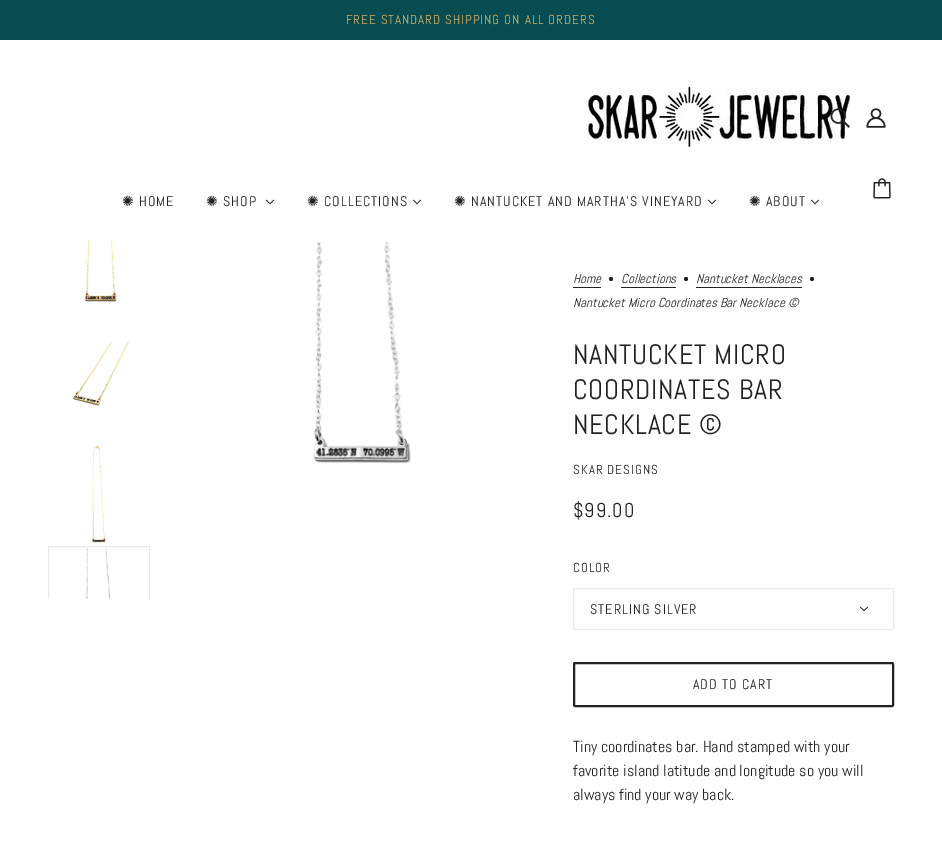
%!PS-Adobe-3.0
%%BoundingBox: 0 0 942 845
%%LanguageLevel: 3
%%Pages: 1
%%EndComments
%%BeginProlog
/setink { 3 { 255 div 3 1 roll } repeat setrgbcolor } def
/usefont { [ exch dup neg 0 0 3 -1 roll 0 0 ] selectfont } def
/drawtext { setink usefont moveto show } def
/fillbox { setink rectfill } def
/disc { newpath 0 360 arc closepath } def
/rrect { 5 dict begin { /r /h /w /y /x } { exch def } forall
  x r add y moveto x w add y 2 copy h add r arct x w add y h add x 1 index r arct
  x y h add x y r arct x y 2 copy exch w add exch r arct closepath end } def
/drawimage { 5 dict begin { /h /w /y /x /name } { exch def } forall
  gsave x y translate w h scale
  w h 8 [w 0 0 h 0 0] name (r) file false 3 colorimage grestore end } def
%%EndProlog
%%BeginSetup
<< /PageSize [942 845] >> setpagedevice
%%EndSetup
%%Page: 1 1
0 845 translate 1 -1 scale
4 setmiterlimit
0 0 942 845 255 255 255 fillbox
0 0 942 40 6 76 81 fillbox
/Abel-Regular 13 usefont
210 175 103 setink
346 24 moveto 1 0 (FREE STANDARD SHIPPING ON ALL ORDERS) ashow
(assets/img1.rgb) 586 86 265 61 drawimage
(assets/img2.rgb) 830 108 20 20 drawimage
(assets/img3.rgb) 866 108 20 20 drawimage
(assets/img4.rgb) 873 178 18 21 drawimage
/DejaVuSans-Regular 14 usefont
34 34 34 setink
122 206 moveto 1 0 (✺) ashow
/Abel-Regular 14 usefont
139 206 moveto 1 0 (HOME) ashow
/DejaVuSans-Regular 14 usefont
206 206 moveto 1 0 (✺) ashow
/Abel-Regular 14 usefont
223 206 moveto 1 0 (SHOP) ashow
(assets/img5.rgb) 265 199 10 6 drawimage
/DejaVuSans-Regular 14 usefont
307 206 moveto 1 0 (✺) ashow
/Abel-Regular 14 usefont
324 206 moveto 1 0 (COLLECTIONS) ashow
(assets/img5.rgb) 412 199 10 6 drawimage
/DejaVuSans-Regular 14 usefont
454 206 moveto 1 0 (✺) ashow
/Abel-Regular 14 usefont
471 206 moveto 1 0 (NANTUCKET AND MARTHA'S VINEYARD) ashow
(assets/img5.rgb) 707 199 10 6 drawimage
/DejaVuSans-Regular 14 usefont
749 206 moveto 1 0 (✺) ashow
/Abel-Regular 14 usefont
766 206 moveto 1 0 (ABOUT) ashow
(assets/img5.rgb) 810 199 10 6 drawimage
(assets/img6.rgb) 84 240 33 62 drawimage
(assets/img7.rgb) 72 341 57 65 drawimage
(assets/img8.rgb) 92 445 14 98 drawimage
gsave
48 240 102 359 rectclip
234 234 234 setink
48.5 546.5 101 101 rectstroke
grestore
(assets/img9.rgb) 86 547 25 52 drawimage
(assets/img10.rgb) 314 242 97 222 drawimage
(Home) 573 283 /Abel-Italic 13 34 34 34 drawtext
573 287 28 1 34 34 34 fillbox
611 279 2 disc fill
(Collections) 621 283 /Abel-Italic 13 34 34 34 drawtext
621 287 55 1 34 34 34 fillbox
686 279 2 disc fill
(Nantucket Necklaces) 696 283 /Abel-Italic 13 34 34 34 drawtext
696 287 106 1 34 34 34 fillbox
812 279 2 disc fill
(Nantucket Micro Coordinates Bar Necklace ©) 573 307 /Abel-Italic 13 34 34 34 drawtext
/Abel-Regular 28 usefont
573 364 moveto 0.75 0 (NANTUCKET MICRO) ashow
573 399 moveto 0.75 0 (COORDINATES BAR) ashow
573 434 moveto 0.75 0 (NECKLACE ©) ashow
/Abel-Regular 13 usefont
573 474 moveto 1 0 (SKAR DESIGNS) ashow
/Abel-Regular 20 usefont
573 517 moveto 1 0 ($99.00) ashow
/Abel-Regular 13 usefont
573 572 moveto 1 0 (COLOR) ashow
234 234 234 setink
573.5 588.5 320 41 1.5 rrect stroke
/Abel-Regular 14 usefont
34 34 34 setink
590 614 moveto 1 0 (STERLING SILVER) ashow
(assets/img5.rgb) 859 606 10 6 drawimage
2 setlinewidth
574 663 319 43 1 rrect stroke
693 689 moveto 1 0 (ADD TO CART) ashow
(Tiny coordinates bar. Hand stamped with your) 573 752 /Abel-Regular 16 34 34 34 drawtext
(favorite island latitude and longitude so you will) 573 776 /Abel-Regular 16 34 34 34 drawtext
(always find your way back.) 573 800 /Abel-Regular 16 34 34 34 drawtext
showpage
%%EOF
